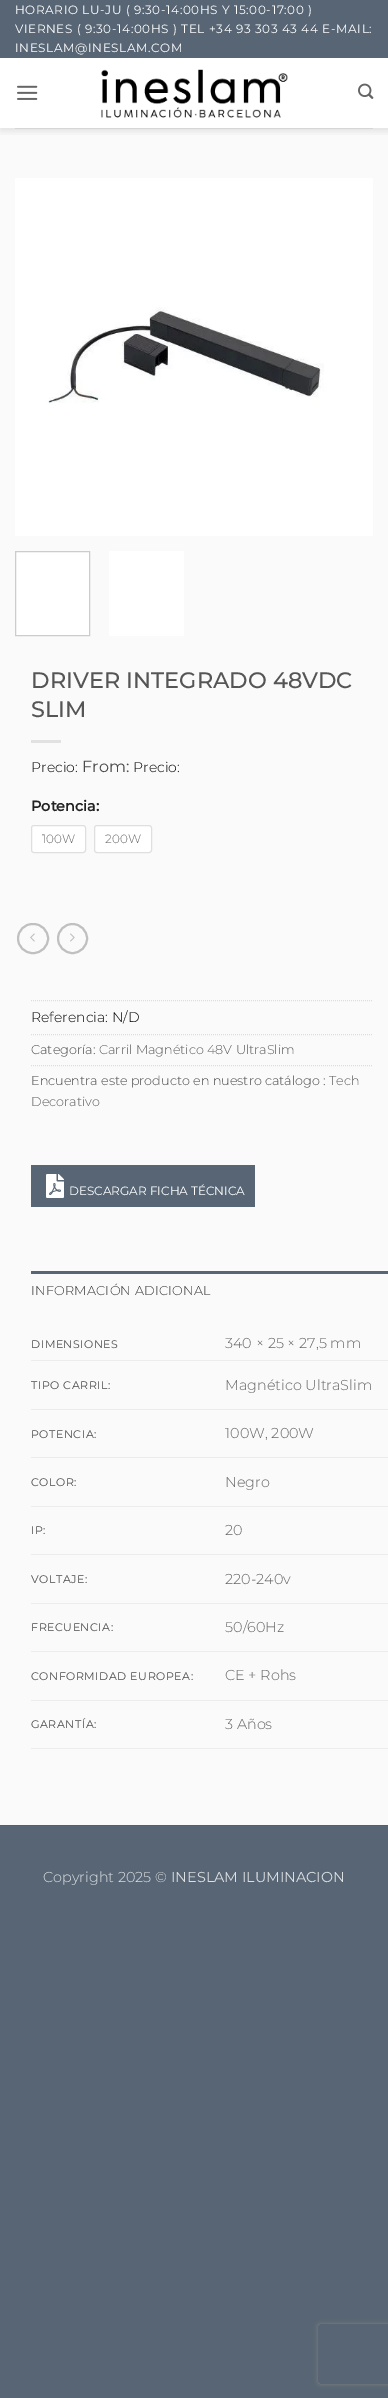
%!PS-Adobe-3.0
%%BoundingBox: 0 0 388 2398
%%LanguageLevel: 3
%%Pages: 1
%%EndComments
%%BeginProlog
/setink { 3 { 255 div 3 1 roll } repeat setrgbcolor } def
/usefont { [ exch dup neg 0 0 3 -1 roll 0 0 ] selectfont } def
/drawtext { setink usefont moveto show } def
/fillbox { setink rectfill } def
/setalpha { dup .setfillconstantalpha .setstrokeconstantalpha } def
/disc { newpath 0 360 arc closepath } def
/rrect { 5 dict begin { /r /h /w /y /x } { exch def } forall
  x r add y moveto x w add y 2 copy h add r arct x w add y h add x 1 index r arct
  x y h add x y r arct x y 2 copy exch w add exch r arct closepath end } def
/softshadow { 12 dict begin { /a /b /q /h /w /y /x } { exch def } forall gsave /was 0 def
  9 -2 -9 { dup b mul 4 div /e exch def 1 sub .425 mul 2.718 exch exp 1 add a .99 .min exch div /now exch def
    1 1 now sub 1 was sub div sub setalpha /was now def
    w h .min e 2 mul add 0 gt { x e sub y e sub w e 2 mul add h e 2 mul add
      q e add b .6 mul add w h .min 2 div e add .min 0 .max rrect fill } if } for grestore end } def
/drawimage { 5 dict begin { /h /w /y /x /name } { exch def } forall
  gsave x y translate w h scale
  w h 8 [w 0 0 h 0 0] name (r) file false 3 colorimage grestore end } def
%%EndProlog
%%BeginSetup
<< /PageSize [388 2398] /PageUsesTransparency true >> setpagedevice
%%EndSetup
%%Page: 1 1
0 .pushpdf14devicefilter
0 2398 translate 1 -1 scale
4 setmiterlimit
0 0 388 2398 87 101 116 fillbox
0 58 388 70 255 255 255 fillbox
0 128 388 1697 250 250 251 fillbox
gsave
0 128 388 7 rectclip
0 0 0 setink
1 1 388 128 0 5 0.15 softshadow
grestore
/Montserrat-Regular 12 usefont
255 255 255 setink
15 14 moveto 0.6 0 (HORARIO LU-JU \( 9:30-14:00HS Y 15:00-17:00 \)) ashow
15 33 moveto 0.6 0 (VIERNES \( 9:30-14:00HS \) TEL +34 93 303 43 44 E-MAIL:) ashow
15 52 moveto 0.6 0 (INESLAM@INESLAM.COM) ashow
(assets/img1.rgb) 17 85 21 15 drawimage
(assets/img2.rgb) 101 69 187 49 drawimage
(assets/img3.rgb) 358 83 16 16 drawimage
15 128 358 1 214 214 215 fillbox
(assets/img4.rgb) 15 178 358 358 drawimage
255 255 255 setink
15.5 551.5 moveto 89.5 551.5 lineto 89.5 635.5 lineto 15.5 635.5 lineto closepath gsave fill grestore
204 204 204 setink
stroke
109 551 75 85 255 255 255 fillbox
(DRIVER INTEGRADO 48VDC) 31 688 /Montserrat-Medium 22.4 85 85 85 drawtext
(SLIM) 31 717 /Montserrat-Medium 22.4 85 85 85 drawtext
31 740 30 3 225 225 226 fillbox
(Precio:) 31 772 /Montserrat-Light 14 0 0 0 drawtext
(From:) 82 772 /Montserrat-Regular 16 74 74 74 drawtext
(Precio:) 133 772 /Montserrat-Light 14 0 0 0 drawtext
(Potencia:) 31 811 /Montserrat-Bold 14.4 34 34 34 drawtext
255 255 255 setink
31.5 825.5 54 27 2.5 rrect gsave fill grestore
223 223 223 setink
stroke
(100W) 42 843 /Montserrat-Light 12 102 102 102 drawtext
255 255 255 setink
94.5 825.5 57 27 2.5 rrect gsave fill grestore
223 223 223 setink
stroke
(200W) 105 843 /Montserrat-Light 12 102 102 102 drawtext
192 192 192 setink
2 setlinewidth
18 924 30 29 14.5 rrect stroke
(assets/img5.rgb) 30 933 5 9 drawimage
72.5 938.5 14.5 disc stroke
(assets/img6.rgb) 70 933 5 9 drawimage
221 221 221 setink
1 setlinewidth
[1 1] 0 setdash
31 1000.5 moveto 373 1000.5 lineto stroke
(Referencia: N/D) 31 1022 /Montserrat-Light 14 0 0 0 drawtext
221 221 221 setink
31 1034.5 moveto 373 1034.5 lineto stroke
(Categoría:) 31 1054 /Montserrat-Light 12.8 74 74 74 drawtext
(Carril Magnético 48V UltraSlim) 99 1054 /Montserrat-Light 12.8 95 95 95 drawtext
221 221 221 setink
31 1065.5 moveto 373 1065.5 lineto stroke
(Encuentra este producto en nuestro catálogo :) 31 1085 /Montserrat-Light 12.8 74 74 74 drawtext
(Tech) 329 1085 /Montserrat-Light 12.8 95 95 95 drawtext
(Decorativo) 31 1106 /Montserrat-Light 12.8 95 95 95 drawtext
31 1165 224 42 87 101 116 fillbox
(assets/img7.rgb) 46 1174 18 24 drawimage
(DESCARGAR FICHA TÉCNICA) 69 1195 /Montserrat-Regular 12 255 255 255 drawtext
31 1271 357 3 87 101 116 fillbox
/Montserrat-Light 12.8 usefont
53 53 53 setink
31 1295 moveto 0.25 0 (INFORMACIÓN ADICIONAL) ashow
31 1360 357 1 236 236 236 fillbox
/Montserrat-Regular 11 usefont
74 74 74 setink
31 1348 moveto 0.55 0 (DIMENSIONES) ashow
(340 × 25 × 27,5 mm) 225 1348 /Montserrat-Light 14.4 102 102 102 drawtext
31 1409 357 1 236 236 236 fillbox
/Montserrat-Regular 11 usefont
74 74 74 setink
31 1389 moveto 0.55 0 (TIPO CARRIL:) ashow
(Magnético UltraSlim) 225 1390 /Montserrat-Light 14.4 102 102 102 drawtext
31 1457 357 1 236 236 236 fillbox
/Montserrat-Regular 11 usefont
74 74 74 setink
31 1438 moveto 0.55 0 (POTENCIA:) ashow
(100W, 200W) 225 1438 /Montserrat-Light 14.4 102 102 102 drawtext
31 1506 357 1 236 236 236 fillbox
/Montserrat-Regular 11 usefont
74 74 74 setink
31 1486 moveto 0.55 0 (COLOR:) ashow
(Negro) 225 1487 /Montserrat-Light 14.4 102 102 102 drawtext
31 1554 357 1 236 236 236 fillbox
/Montserrat-Regular 11 usefont
74 74 74 setink
31 1534 moveto 0.55 0 (IP:) ashow
(20) 225 1535 /Montserrat-Light 14.4 102 102 102 drawtext
31 1603 357 1 236 236 236 fillbox
/Montserrat-Regular 11 usefont
74 74 74 setink
31 1583 moveto 0.55 0 (VOLTAJE:) ashow
(220-240v) 225 1584 /Montserrat-Light 14.4 102 102 102 drawtext
31 1651 357 1 236 236 236 fillbox
/Montserrat-Regular 11 usefont
74 74 74 setink
31 1631 moveto 0.55 0 (FRECUENCIA:) ashow
(50/60Hz) 225 1632 /Montserrat-Light 14.4 102 102 102 drawtext
31 1700 357 1 236 236 236 fillbox
/Montserrat-Regular 11 usefont
74 74 74 setink
31 1680 moveto 0.55 0 (CONFORMIDAD EUROPEA:) ashow
(CE + Rohs) 225 1680 /Montserrat-Light 14.4 102 102 102 drawtext
31 1748 357 1 236 236 236 fillbox
/Montserrat-Regular 11 usefont
74 74 74 setink
31 1728 moveto 0.55 0 (GARANTÍA:) ashow
(3 Años) 225 1729 /Montserrat-Light 14.4 102 102 102 drawtext
0 1825 388 1 83 96 110 fillbox
(Copyright 2025 ©) 43 1882 /Montserrat-Light 14.4 221 224 227 drawtext
(INESLAM ILUMINACION) 171 1882 /Montserrat-Regular 14.4 221 224 227 drawtext
gsave
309 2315 moveto 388 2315 lineto 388 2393 lineto 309 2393 lineto closepath 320 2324 moveto 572 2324 lineto 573 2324 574 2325 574 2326 curveto 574 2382 lineto 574 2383 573 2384 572 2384 curveto 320 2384 lineto 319 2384 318 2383 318 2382 curveto 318 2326 lineto 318 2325 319 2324 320 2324 curveto closepath eoclip newpath
128 128 128 setink
318 2324 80 60 2 2.5 1 softshadow
grestore
.poppdf14devicefilter showpage
%%EOF
